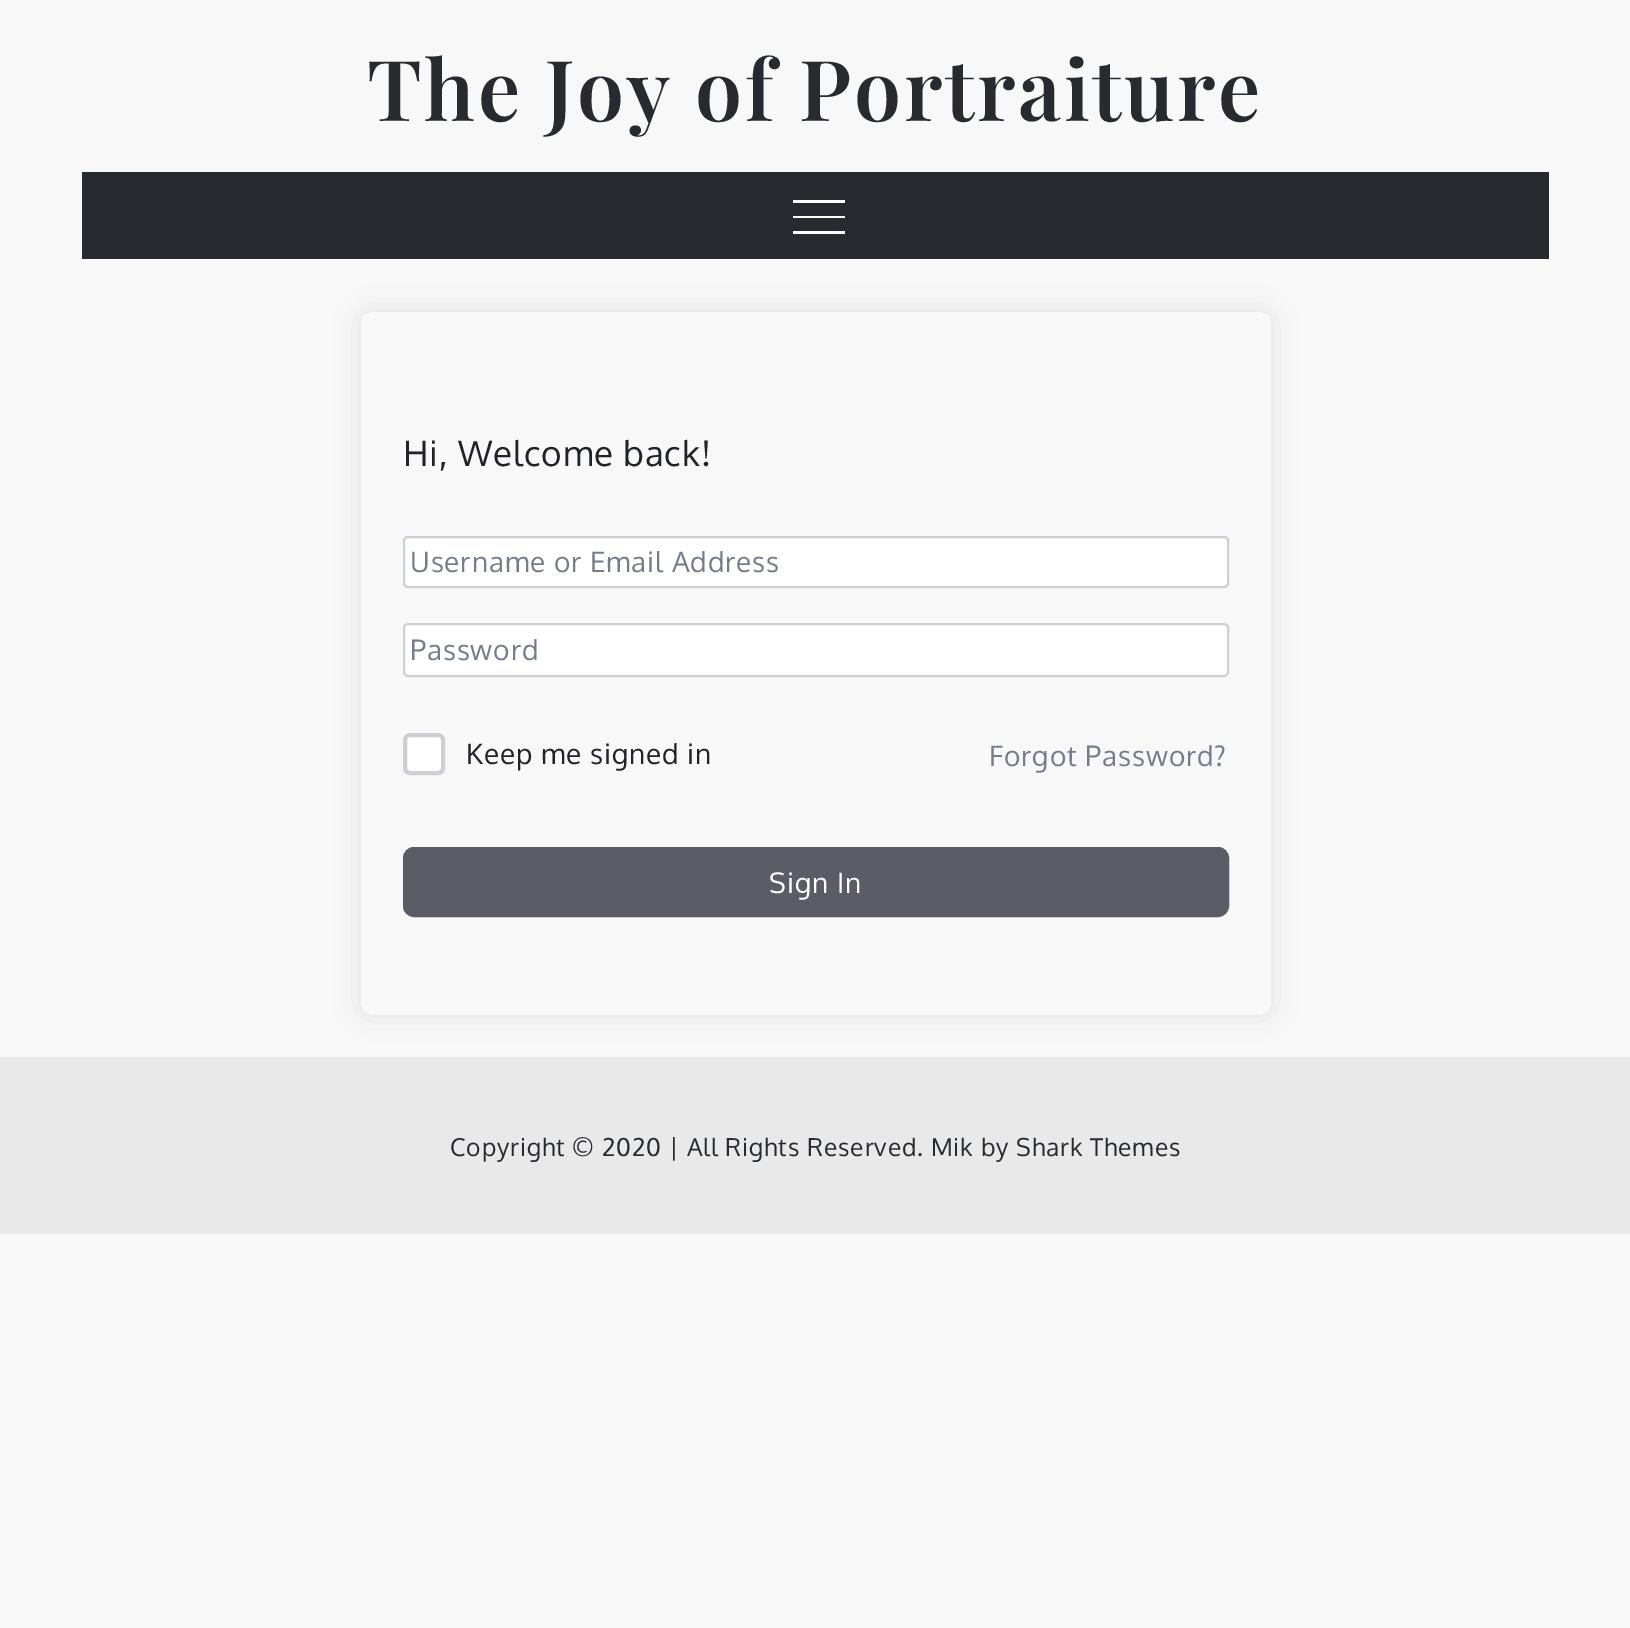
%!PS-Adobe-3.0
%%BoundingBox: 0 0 1630 1628
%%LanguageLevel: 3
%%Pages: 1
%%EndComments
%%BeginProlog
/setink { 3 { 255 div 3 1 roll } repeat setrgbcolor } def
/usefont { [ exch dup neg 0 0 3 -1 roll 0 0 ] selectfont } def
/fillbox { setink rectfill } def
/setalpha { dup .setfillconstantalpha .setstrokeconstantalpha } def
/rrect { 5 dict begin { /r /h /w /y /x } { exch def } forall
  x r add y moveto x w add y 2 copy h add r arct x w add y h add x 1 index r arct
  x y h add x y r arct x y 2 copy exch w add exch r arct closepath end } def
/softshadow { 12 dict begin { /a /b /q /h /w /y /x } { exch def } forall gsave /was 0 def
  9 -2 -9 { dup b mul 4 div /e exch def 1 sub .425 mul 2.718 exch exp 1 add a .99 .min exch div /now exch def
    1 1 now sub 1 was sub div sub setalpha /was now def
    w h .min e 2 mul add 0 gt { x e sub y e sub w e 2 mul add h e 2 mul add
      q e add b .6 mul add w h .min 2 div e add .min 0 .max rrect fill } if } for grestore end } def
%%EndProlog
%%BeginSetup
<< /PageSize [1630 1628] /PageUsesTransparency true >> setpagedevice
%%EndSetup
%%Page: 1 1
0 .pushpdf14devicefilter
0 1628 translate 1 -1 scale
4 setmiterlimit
0 0 1630 1628 248 248 248 fillbox
/PlayfairDisplay-SemiBold 84 usefont
39 43 47 setink
367 121 moveto 2.6 0 (The Joy of Portraiture) ashow
82 172 1467 87 39 43 47 fillbox
793 200 52 3 255 255 255 fillbox
793 216 52 2 255 255 255 fillbox
793 231 52 3 255 255 255 fillbox
gsave
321 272 moveto 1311 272 lineto 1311 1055 lineto 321 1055 lineto closepath 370 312 moveto 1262 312 lineto 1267 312 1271 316 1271 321 curveto 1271 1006 lineto 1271 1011 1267 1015 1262 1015 curveto 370 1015 lineto 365 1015 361 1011 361 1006 curveto 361 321 lineto 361 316 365 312 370 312 curveto closepath eoclip newpath
0 0 0 setink
361 312 910 703 9 13 0.1 softshadow
grestore
/Oxygen-Regular 35 usefont
33 35 39 setink
403 466 moveto 0.88 0 (Hi, Welcome back!) ashow
255 255 255 setink
404 537 824 50 4 rrect gsave fill grestore
205 207 213 setink
2 setlinewidth
stroke
/Oxygen-Regular 28 usefont
117 124 142 setink
410 572 moveto 0.88 0 (Username or Email Address) ashow
255 255 255 setink
404 624 824 52 4 rrect gsave fill grestore
205 207 213 setink
stroke
117 124 142 setink
410 660 moveto 0.88 0 (Password) ashow
255 255 255 setink
405 735 38 38 5 rrect gsave fill grestore
205 207 213 setink
4 setlinewidth
stroke
33 35 39 setink
466 764 moveto 0.88 0 (Keep me signed in) ashow
117 124 142 setink
989 766 moveto 0.88 0 (Forgot Password?) ashow
92 92 102 setink
404 848 824 68 10 rrect gsave fill grestore
2 setlinewidth
stroke
255 255 255 setink
769 893 moveto 0.88 0 (Sign In) ashow
0 1057 1630 177 233 233 233 fillbox
/Oxygen-Regular 24.5 usefont
39 43 47 setink
450 1156 moveto 0.88 0 (Copyright © 2020 | All Rights Reserved. Mik by Shark Themes) ashow
.poppdf14devicefilter showpage
%%EOF
